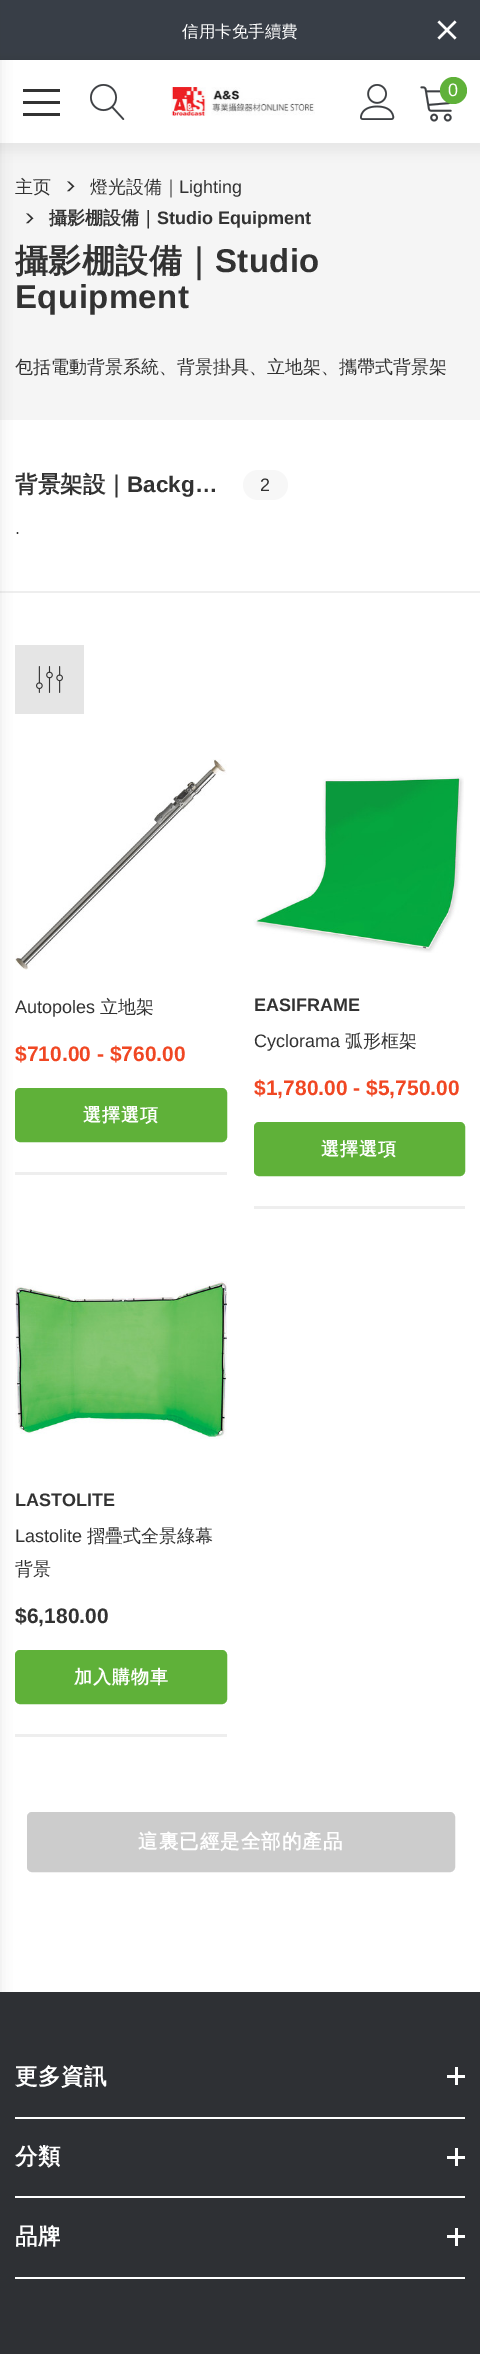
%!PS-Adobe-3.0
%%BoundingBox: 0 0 480 2354
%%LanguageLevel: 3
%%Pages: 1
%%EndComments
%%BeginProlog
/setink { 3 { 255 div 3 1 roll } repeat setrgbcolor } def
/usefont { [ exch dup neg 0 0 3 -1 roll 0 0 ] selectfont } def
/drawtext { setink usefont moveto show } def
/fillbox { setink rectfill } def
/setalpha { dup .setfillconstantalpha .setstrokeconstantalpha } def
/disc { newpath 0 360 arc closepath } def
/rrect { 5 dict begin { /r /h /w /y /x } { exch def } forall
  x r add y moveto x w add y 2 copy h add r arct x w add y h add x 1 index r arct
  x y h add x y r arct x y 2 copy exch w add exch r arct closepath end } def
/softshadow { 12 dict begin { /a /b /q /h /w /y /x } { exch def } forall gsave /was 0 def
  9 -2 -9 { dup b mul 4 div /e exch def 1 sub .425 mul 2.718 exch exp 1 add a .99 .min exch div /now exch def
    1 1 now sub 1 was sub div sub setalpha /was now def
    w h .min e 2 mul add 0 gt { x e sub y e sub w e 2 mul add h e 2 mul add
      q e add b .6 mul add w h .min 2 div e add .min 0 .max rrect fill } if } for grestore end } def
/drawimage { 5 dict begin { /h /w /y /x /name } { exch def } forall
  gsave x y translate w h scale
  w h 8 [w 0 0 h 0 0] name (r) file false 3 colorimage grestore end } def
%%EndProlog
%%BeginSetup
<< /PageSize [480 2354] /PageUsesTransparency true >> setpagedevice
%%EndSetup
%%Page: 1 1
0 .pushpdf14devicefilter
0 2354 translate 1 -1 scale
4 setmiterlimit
0 0 480 2354 255 255 255 fillbox
0 0 480 60 56 62 71 fillbox
(信用卡免手續費) 182 37 /WenQuanYiZenHei-Medium 16.5 255 255 255 drawtext
(assets/img1.rgb) 437 20 20 20 drawimage
0 143 480 277 245 245 245 fillbox
0 0 0 setink
-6 57 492 95 0 6 0.05 softshadow
0 60 480 83 255 255 255 fillbox
23 101 37 3 50 50 50 fillbox
23 89 37 3 50 50 50 fillbox
23 113 37 3 50 50 50 fillbox
(assets/img2.rgb) 90 84 35 36 drawimage
(assets/img3.rgb) 171 87 144 29 drawimage
(assets/img4.rgb) 360 84 35 36 drawimage
(assets/img5.rgb) 420 86 32 36 drawimage
95 177 57 setink
453.5 90.5 13.5 disc fill
(0) 448 96 /Arimo-Regular 18 255 255 255 drawtext
(主页) 15 193 /WenQuanYiZenHei-Medium 18 50 50 50 drawtext
(>) 65 194 /Poppins-Regular 21 50 50 50 drawtext
(燈光設備｜) 90 193 /WenQuanYiZenHei-Medium 18 50 50 50 drawtext
(Lighting) 179 193 /Arimo-Regular 18 50 50 50 drawtext
(>) 24 226 /Poppins-Regular 21 50 50 50 drawtext
(攝影棚設備｜) 49 224 /WenQuanYiZenHei-Bold 18 50 50 50 drawtext
(Studio Equipment) 157 224 /Arimo-Bold 18 50 50 50 drawtext
/WenQuanYiZenHei-Bold 33 usefont
15 272 moveto 0.4 0 (攝影棚設備｜) ashow
/Arimo-Bold 33 usefont
215 272 moveto 0.4 0 (Studio) ashow
15 308 moveto 0.4 0 (Equipment) ashow
(包括電動背景系統、背景掛具、立地架、攜帶式背景架) 15 373 /WenQuanYiZenHei-Medium 18 50 50 50 drawtext
0 591 480 2 238 238 238 fillbox
(背景架設｜) 15 492 /WenQuanYiZenHei-Bold 22.5 50 50 50 drawtext
(Backg…) 127 492 /Arimo-Bold 22.5 50 50 50 drawtext
247 247 247 setink
243 470 45 30 15 rrect fill
(2) 260 491 /Arimo-Regular 18 50 50 50 drawtext
(.) 15 534 /Arimo-Regular 18 50 50 50 drawtext
15 645 69 69 229 229 229 fillbox
15 1172 212 3 238 238 238 fillbox
(assets/img7.rgb) 15 759 212 211 drawimage
95 177 57 setink
16 1089 210 52 4 rrect gsave fill grestore
2 setlinewidth
stroke
15 1734 212 3 238 238 238 fillbox
(assets/img9.rgb) 15 1281 212 158 drawimage
95 177 57 setink
16 1651 210 52 4 rrect gsave fill grestore
stroke
0 1992 480 362 46 48 52 fillbox
15 2117 450 2 255 255 255 fillbox
15 2196 450 2 255 255 255 fillbox
15 2277 450 2 255 255 255 fillbox
50 50 50 setink
-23 0 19 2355 0 7.5 0.2 softshadow
(assets/img6.rgb) 36 666 27 27 drawimage
(Autopoles) 15 1013 /Arimo-Regular 18 50 50 50 drawtext
(立地架) 100 1013 /WenQuanYiZenHei-Medium 18 50 50 50 drawtext
($710.00 - $760.00) 15 1061 /Arimo-Bold 21 240 71 35 drawtext
/WenQuanYiZenHei-Bold 18 usefont
255 255 255 setink
83 1121 moveto 1 0 (選擇選項) ashow
254 1206 211 3 238 238 238 fillbox
(assets/img8.rgb) 253 775 211 178 drawimage
(EASIFRAME) 254 1011 /Arimo-Bold 18 50 50 50 drawtext
(Cyclorama) 254 1047 /Arimo-Regular 18 50 50 50 drawtext
(弧形框架) 345 1047 /WenQuanYiZenHei-Medium 18 50 50 50 drawtext
($1,780.00 - $5,750.00) 254 1095 /Arimo-Bold 21 240 71 35 drawtext
95 177 57 setink
255 1123 209 52 4 rrect gsave fill grestore
stroke
/WenQuanYiZenHei-Bold 18 usefont
255 255 255 setink
321 1155 moveto 1 0 (選擇選項) ashow
(LASTOLITE) 15 1506 /Arimo-Bold 18 50 50 50 drawtext
(Lastolite) 15 1542 /Arimo-Regular 18 50 50 50 drawtext
(摺疊式全景綠幕) 87 1542 /WenQuanYiZenHei-Medium 18 50 50 50 drawtext
(背景) 15 1575 /WenQuanYiZenHei-Medium 18 50 50 50 drawtext
($6,180.00) 15 1623 /Arimo-Bold 21 50 50 50 drawtext
/WenQuanYiZenHei-Bold 18 usefont
255 255 255 setink
74 1683 moveto 1 0 (加入購物車) ashow
204 204 204 setink
28 1813 426 58 4 rrect gsave fill grestore
stroke
/WenQuanYiZenHei-Bold 19.5 usefont
255 255 255 setink
138 1848 moveto 1 0 (這裏已經是全部的產品) ashow
/WenQuanYiZenHei-Bold 22.5 usefont
15 2084 moveto 0.4 0 (更多資訊) ashow
455 2067 3 18 255 255 255 fillbox
447 2075 18 3 255 255 255 fillbox
15 2164 moveto 0.4 0 (分類) ashow
455 2148 3 18 255 255 255 fillbox
447 2156 18 3 255 255 255 fillbox
15 2244 moveto 0.4 0 (品牌) ashow
455 2228 3 18 255 255 255 fillbox
447 2235 18 3 255 255 255 fillbox
.poppdf14devicefilter showpage
%%EOF
